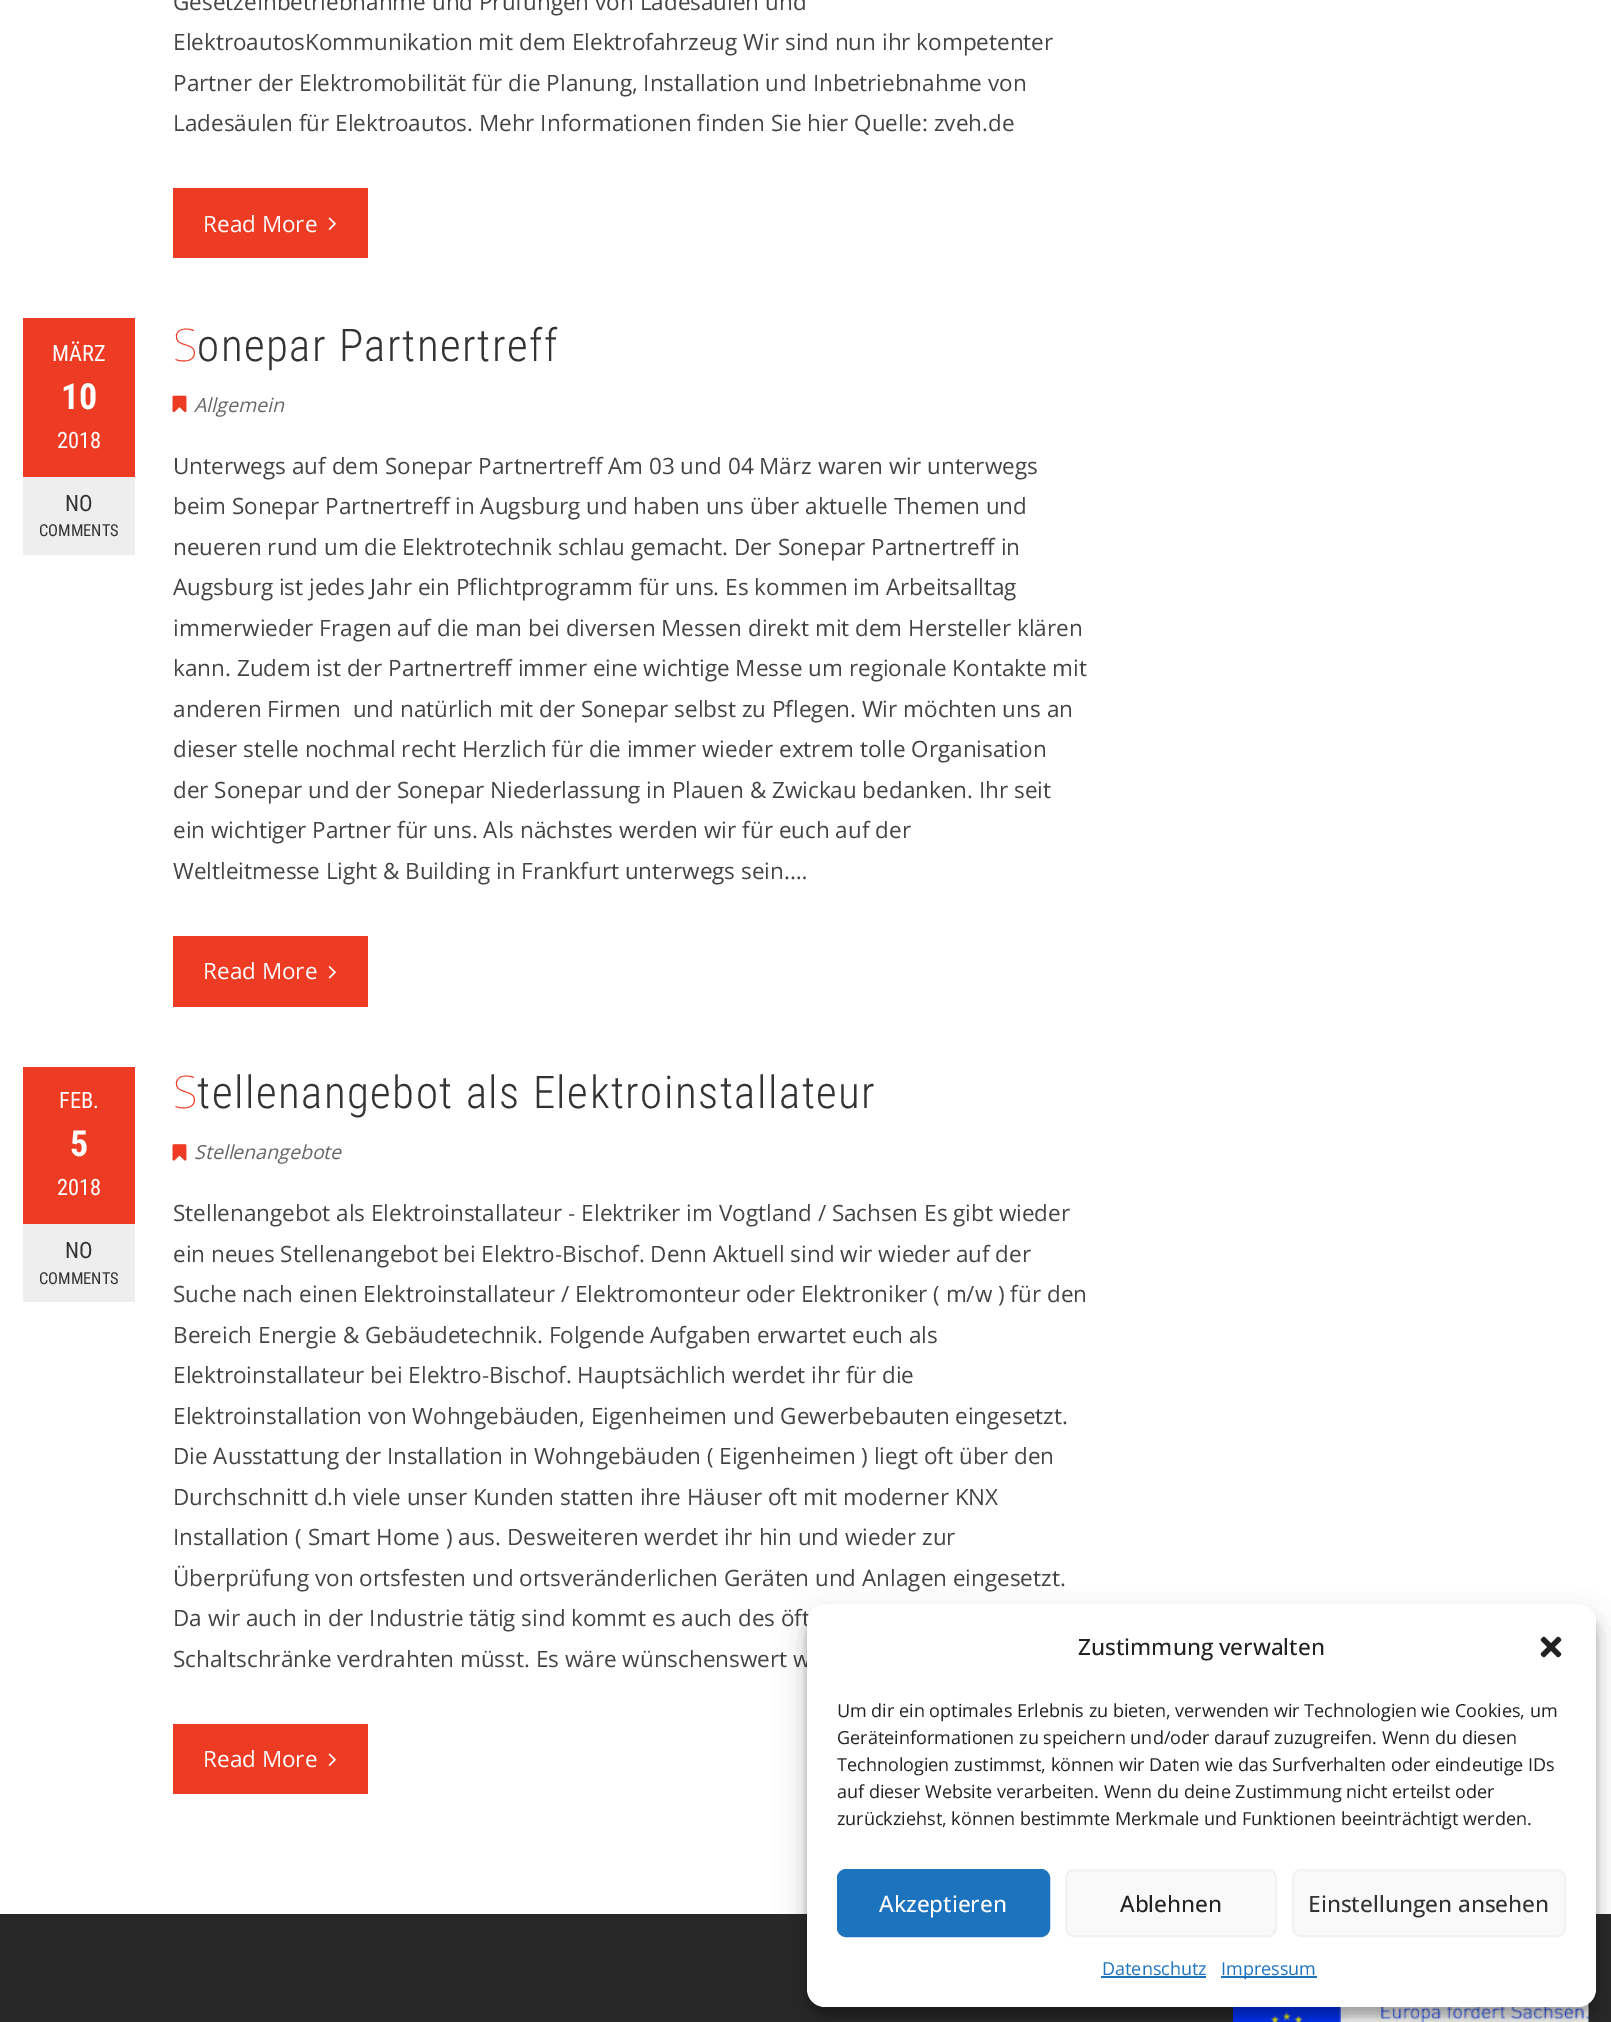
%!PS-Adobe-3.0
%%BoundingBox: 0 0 1611 2022
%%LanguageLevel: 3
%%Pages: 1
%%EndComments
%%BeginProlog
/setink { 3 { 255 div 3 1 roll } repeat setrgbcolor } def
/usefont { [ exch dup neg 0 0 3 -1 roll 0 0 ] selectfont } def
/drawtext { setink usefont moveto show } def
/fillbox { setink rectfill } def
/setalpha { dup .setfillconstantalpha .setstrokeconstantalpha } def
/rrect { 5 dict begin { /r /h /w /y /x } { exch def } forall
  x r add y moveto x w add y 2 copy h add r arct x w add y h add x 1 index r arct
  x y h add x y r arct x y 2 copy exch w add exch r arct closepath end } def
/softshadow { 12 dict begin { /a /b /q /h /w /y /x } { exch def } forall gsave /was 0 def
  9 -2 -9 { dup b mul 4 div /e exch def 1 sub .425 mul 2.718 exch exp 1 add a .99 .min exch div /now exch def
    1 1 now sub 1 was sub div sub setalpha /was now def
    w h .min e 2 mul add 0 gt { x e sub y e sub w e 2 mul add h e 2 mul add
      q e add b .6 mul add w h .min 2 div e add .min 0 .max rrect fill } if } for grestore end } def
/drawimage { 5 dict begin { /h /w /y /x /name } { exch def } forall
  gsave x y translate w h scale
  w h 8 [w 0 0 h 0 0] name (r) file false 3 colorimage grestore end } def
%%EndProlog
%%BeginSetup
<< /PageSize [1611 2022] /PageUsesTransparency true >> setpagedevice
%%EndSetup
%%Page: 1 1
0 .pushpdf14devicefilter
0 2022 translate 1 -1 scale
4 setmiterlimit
0 0 1611 2022 255 255 255 fillbox
(GesetzeInbetriebnahme und Prüfungen von Ladesäulen und) 173 10 /OpenSans-Regular 22.5 68 68 68 drawtext
(ElektroautosKommunikation mit dem Elektrofahrzeug Wir sind nun ihr kompetenter) 173 50 /OpenSans-Regular 22.5 68 68 68 drawtext
(Partner der Elektromobilität für die Planung, Installation und Inbetriebnahme von) 173 91 /OpenSans-Regular 22.5 68 68 68 drawtext
(Ladesäulen für Elektroautos. Mehr Informationen finden Sie hier Quelle: zveh.de) 173 131 /OpenSans-Regular 22.5 68 68 68 drawtext
173 188 195 70 238 59 36 fillbox
(Read More) 203 232 /OpenSans-Regular 22.5 255 255 255 drawtext
(assets/img1.rgb) 328 217 8 13 drawimage
23 318 112 159 238 59 36 fillbox
(MÄRZ) 52 361 /RobotoCondensed-Regular 22.5 255 255 255 drawtext
(10) 61 409 /RobotoCondensed-Bold 36 255 255 255 drawtext
(2018) 57 448 /RobotoCondensed-Regular 22.5 255 255 255 drawtext
23 477 112 78 238 238 238 fillbox
(NO) 65 511 /RobotoCondensed-Regular 22.5 51 51 51 drawtext
(COMMENTS) 39 536 /RobotoCondensed-Regular 16.5 51 51 51 drawtext
/NotoSans-Thin 45 usefont
238 59 36 setink
173 361 moveto 1.5 0 (S) ashow
/RobotoCondensed-Light 45 usefont
51 51 51 setink
197 361 moveto 1.5 0 (onepar Partnertreff) ashow
(assets/img2.rgb) 172 395 15 18 drawimage
(Allgemein) 194 412 /OpenSans-Italic 19.5 102 102 102 drawtext
(Unterwegs auf dem Sonepar Partnertreff Am 03 und 04 März waren wir unterwegs) 173 474 /OpenSans-Regular 22.5 68 68 68 drawtext
(beim Sonepar Partnertreff in Augsburg und haben uns über aktuelle Themen und) 173 514 /OpenSans-Regular 22.5 68 68 68 drawtext
(neueren rund um die Elektrotechnik schlau gemacht. Der Sonepar Partnertreff in) 173 555 /OpenSans-Regular 22.5 68 68 68 drawtext
(Augsburg ist jedes Jahr ein Pflichtprogramm für uns. Es kommen im Arbeitsalltag) 173 595 /OpenSans-Regular 22.5 68 68 68 drawtext
(immerwieder Fragen auf die man bei diversen Messen direkt mit dem Hersteller klären) 173 636 /OpenSans-Regular 22.5 68 68 68 drawtext
(kann. Zudem ist der Partnertreff immer eine wichtige Messe um regionale Kontakte mit) 173 676 /OpenSans-Regular 22.5 68 68 68 drawtext
(anderen Firmen  und natürlich mit der Sonepar selbst zu Pflegen. Wir möchten uns an) 173 717 /OpenSans-Regular 22.5 68 68 68 drawtext
(dieser stelle nochmal recht Herzlich für die immer wieder extrem tolle Organisation) 173 757 /OpenSans-Regular 22.5 68 68 68 drawtext
(der Sonepar und der Sonepar Niederlassung in Plauen & Zwickau bedanken. Ihr seit) 173 798 /OpenSans-Regular 22.5 68 68 68 drawtext
(ein wichtiger Partner für uns. Als nächstes werden wir für euch auf der) 173 838 /OpenSans-Regular 22.5 68 68 68 drawtext
(Weltleitmesse Light & Building in Frankfurt unterwegs sein.…) 173 879 /OpenSans-Regular 22.5 68 68 68 drawtext
173 936 195 71 238 59 36 fillbox
(Read More) 203 979 /OpenSans-Regular 22.5 255 255 255 drawtext
(assets/img3.rgb) 328 966 8 13 drawimage
23 1067 112 157 238 59 36 fillbox
(FEB.) 59 1108 /RobotoCondensed-Regular 22.5 255 255 255 drawtext
(5) 70 1156 /RobotoCondensed-Bold 36 255 255 255 drawtext
(2018) 57 1195 /RobotoCondensed-Regular 22.5 255 255 255 drawtext
23 1224 112 78 238 238 238 fillbox
(NO) 65 1258 /RobotoCondensed-Regular 22.5 51 51 51 drawtext
(COMMENTS) 39 1284 /RobotoCondensed-Regular 16.5 51 51 51 drawtext
/NotoSans-Thin 45 usefont
238 59 36 setink
173 1108 moveto 1.5 0 (S) ashow
/RobotoCondensed-Light 45 usefont
51 51 51 setink
197 1108 moveto 1.5 0 (tellenangebot als Elektroinstallateur) ashow
(assets/img4.rgb) 172 1144 15 17 drawimage
(Stellenangebote) 194 1159 /OpenSans-Italic 19.5 102 102 102 drawtext
(Stellenangebot als Elektroinstallateur - Elektriker im Vogtland / Sachsen Es gibt wieder) 173 1221 /OpenSans-Regular 22.5 68 68 68 drawtext
(ein neues Stellenangebot bei Elektro-Bischof. Denn Aktuell sind wir wieder auf der) 173 1262 /OpenSans-Regular 22.5 68 68 68 drawtext
(Suche nach einen Elektroinstallateur / Elektromonteur oder Elektroniker \( m/w \) für den) 173 1302 /OpenSans-Regular 22.5 68 68 68 drawtext
(Bereich Energie & Gebäudetechnik. Folgende Aufgaben erwartet euch als) 173 1343 /OpenSans-Regular 22.5 68 68 68 drawtext
(Elektroinstallateur bei Elektro-Bischof. Hauptsächlich werdet ihr für die) 173 1383 /OpenSans-Regular 22.5 68 68 68 drawtext
(Elektroinstallation von Wohngebäuden, Eigenheimen und Gewerbebauten eingesetzt.) 173 1424 /OpenSans-Regular 22.5 68 68 68 drawtext
(Die Ausstattung der Installation in Wohngebäuden \( Eigenheimen \) liegt oft über den) 173 1464 /OpenSans-Regular 22.5 68 68 68 drawtext
(Durchschnitt d.h viele unser Kunden statten ihre Häuser oft mit moderner KNX) 173 1505 /OpenSans-Regular 22.5 68 68 68 drawtext
(Installation \( Smart Home \) aus. Desweiteren werdet ihr hin und wieder zur) 173 1545 /OpenSans-Regular 22.5 68 68 68 drawtext
(Überprüfung von ortsfesten und ortsveränderlichen Geräten und Anlagen eingesetzt.) 173 1586 /OpenSans-Regular 22.5 68 68 68 drawtext
(Da wir auch in der Industrie tätig sind kommt es auch des öft) 173 1626 /OpenSans-Regular 22.5 68 68 68 drawtext
(Schaltschränke verdrahten müsst. Es wäre wünschenswert w) 173 1667 /OpenSans-Regular 22.5 68 68 68 drawtext
173 1724 195 70 238 59 36 fillbox
(Read More) 203 1767 /OpenSans-Regular 22.5 255 255 255 drawtext
(assets/img1.rgb) 328 1753 8 13 drawimage
0 1914 1611 108 40 40 40 fillbox
(assets/img5.rgb) 1233 2004 356 18 drawimage
0 0 0 setink
807 1613 789 403 18 4.5 0.23 softshadow
807 1619 789 403 18 15 0.19 softshadow
255 255 255 setink
807 1604 789 403 18 rrect fill
(Zustimmung verwalten) 1078 1655 /OpenSans-Medium 22.5 34 34 34 drawtext
(assets/img6.rgb) 1540 1636 22 22 drawimage
(Um dir ein optimales Erlebnis zu bieten, verwenden wir Technologien wie Cookies, um) 837 1717 /OpenSans-Regular 18 34 34 34 drawtext
(Geräteinformationen zu speichern und/oder darauf zuzugreifen. Wenn du diesen) 837 1744 /OpenSans-Regular 18 34 34 34 drawtext
(Technologien zustimmst, können wir Daten wie das Surfverhalten oder eindeutige IDs) 837 1771 /OpenSans-Regular 18 34 34 34 drawtext
(auf dieser Website verarbeiten. Wenn du deine Zustimmung nicht erteilst oder) 837 1798 /OpenSans-Regular 18 34 34 34 drawtext
(zurückziehst, können bestimmte Merkmale und Funktionen beeinträchtigt werden.) 837 1825 /OpenSans-Regular 18 34 34 34 drawtext
30 115 190 setink
838 1870 211 66 8 rrect gsave fill grestore
2 setlinewidth
stroke
(Akzeptieren) 879 1912 /OpenSans-Medium 22.5 255 255 255 drawtext
249 249 249 setink
1066 1870 210 66 8 rrect gsave fill grestore
242 242 242 setink
stroke
(Ablehnen) 1120 1912 /OpenSans-Medium 22.5 34 34 34 drawtext
249 249 249 setink
1293 1870 272 66 8 rrect gsave fill grestore
242 242 242 setink
stroke
(Einstellungen ansehen) 1308 1912 /OpenSans-Medium 22.5 51 51 51 drawtext
(Datenschutz) 1102 1975 /OpenSans-Regular 18 30 115 190 drawtext
1101 1976 105 2 30 115 190 fillbox
1221 1976 96 2 30 115 190 fillbox
(Impressum) 1221 1975 /OpenSans-Regular 18 30 115 190 drawtext
.poppdf14devicefilter showpage
%%EOF
